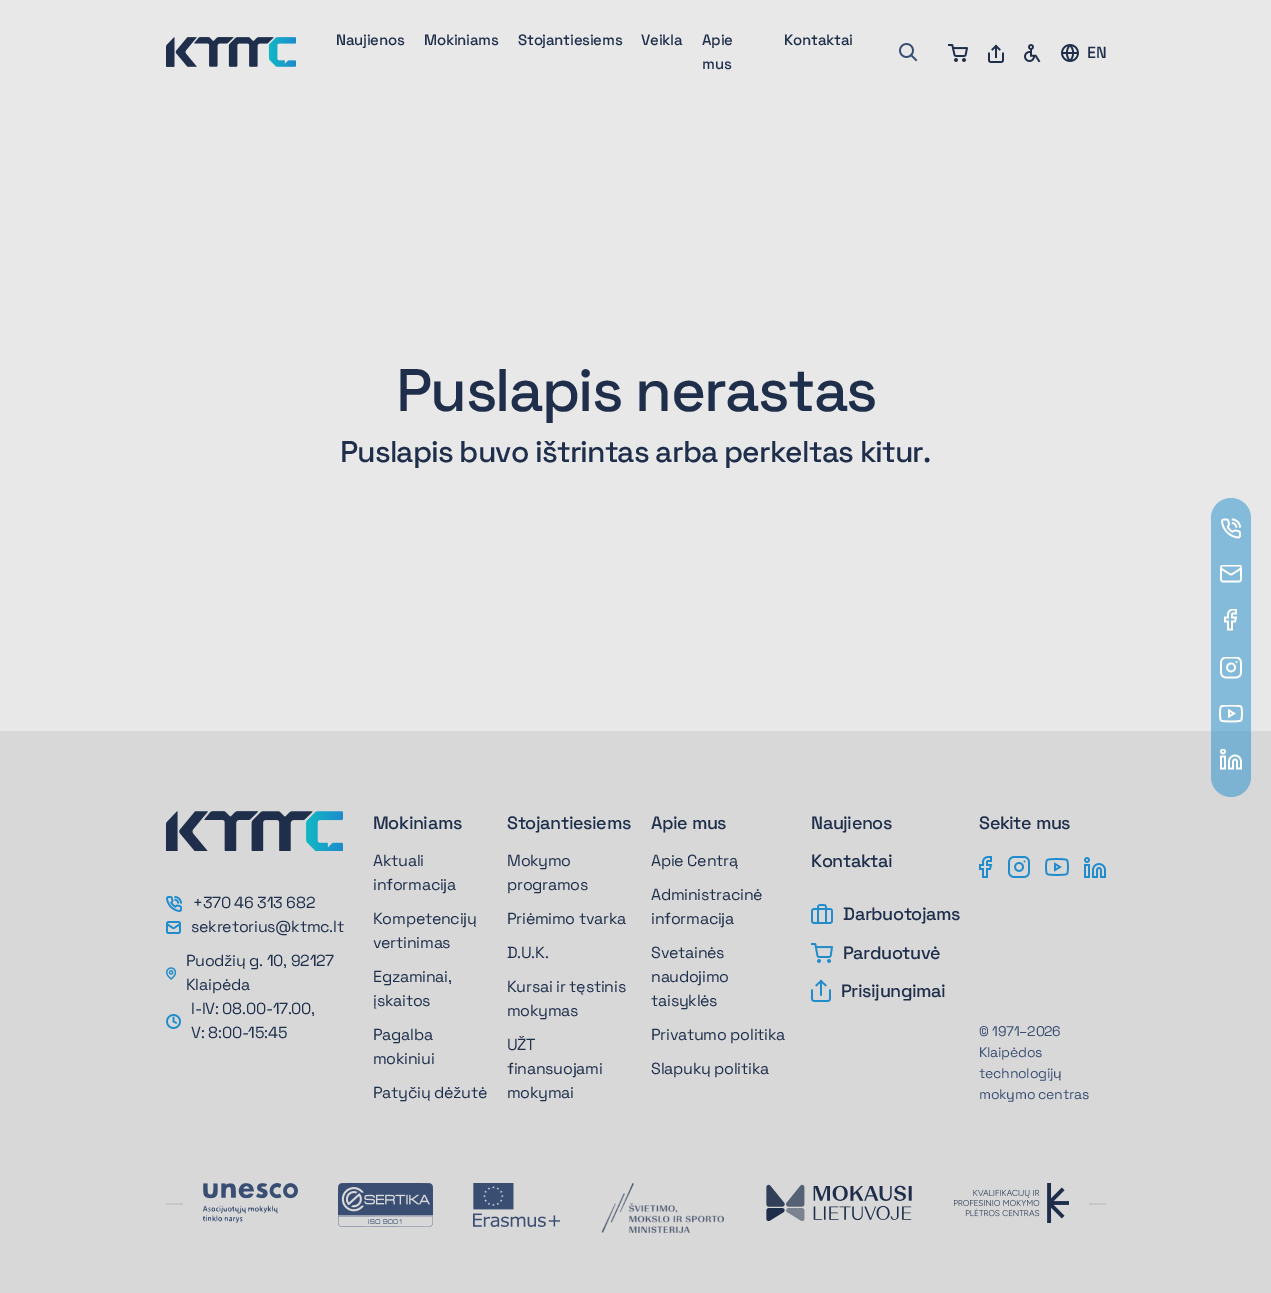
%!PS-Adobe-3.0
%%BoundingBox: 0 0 1271 1293
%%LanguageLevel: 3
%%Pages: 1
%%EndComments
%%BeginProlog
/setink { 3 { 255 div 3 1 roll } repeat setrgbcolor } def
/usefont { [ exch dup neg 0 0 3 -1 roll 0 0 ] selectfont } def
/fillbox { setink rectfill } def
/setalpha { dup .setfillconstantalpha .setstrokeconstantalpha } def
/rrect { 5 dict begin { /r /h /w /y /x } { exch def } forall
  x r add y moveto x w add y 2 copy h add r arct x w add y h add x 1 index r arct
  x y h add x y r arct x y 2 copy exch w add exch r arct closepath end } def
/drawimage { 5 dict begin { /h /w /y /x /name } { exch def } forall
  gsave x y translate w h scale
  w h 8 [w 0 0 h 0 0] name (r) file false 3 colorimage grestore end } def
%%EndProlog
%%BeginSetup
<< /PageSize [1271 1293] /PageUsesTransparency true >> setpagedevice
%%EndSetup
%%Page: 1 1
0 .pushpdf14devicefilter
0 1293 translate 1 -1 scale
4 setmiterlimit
0 0 1271 1293 232 232 232 fillbox
(assets/img1.rgb) 166 37 130 30 drawimage
/SpaceGrotesk-Medium 15 usefont
31 47 75 setink
336 45 moveto -0.25 0 (Naujienos) ashow
424 45 moveto -0.25 0 (Mokiniams) ashow
518 45 moveto -0.25 0 (Stojantiesiems) ashow
641 45 moveto -0.25 0 (Veikla) ashow
702 45 moveto -0.25 0 (Apie) ashow
702 69 moveto -0.25 0 (mus) ashow
784 45 moveto -0.25 0 (Kontaktai) ashow
(assets/img2.rgb) 899 43 19 19 drawimage
(assets/img3.rgb) 948 44 20 18 drawimage
(assets/img4.rgb) 988 44 16 19 drawimage
(assets/img5.rgb) 1024 44 17 19 drawimage
(assets/img6.rgb) 1061 44 18 18 drawimage
/SpaceGrotesk-Medium 16 usefont
1087 58 moveto -0.3 0 (EN) ashow
/SpaceGrotesk-Medium 60 usefont
396 411 moveto -1.75 0 (Puslapis nerastas) ashow
/SpaceGrotesk-Medium 30 usefont
340 462 moveto -0.9 0 (Puslapis buvo ištrintas arba perkeltas kitur.) ashow
0 731 1271 562 216 216 216 fillbox
0.5 setalpha
33 140 204 setink
1211 498 40 299 20 rrect fill
1 setalpha
(assets/img7.rgb) 1221 518 21 21 drawimage
(assets/img8.rgb) 1220 565 22 18 drawimage
(assets/img9.rgb) 1224 609 14 22 drawimage
(assets/img10.rgb) 1220 657 22 22 drawimage
(assets/img11.rgb) 1219 705 24 18 drawimage
(assets/img12.rgb) 1220 749 22 21 drawimage
(assets/img13.rgb) 166 811 177 40 drawimage
(assets/img14.rgb) 166 895 17 17 drawimage
/SpaceGrotesk-Regular 16 usefont
31 47 75 setink
193 908 moveto -0.3 0 (+370 46 313 682) ashow
(assets/img15.rgb) 166 921 15 13 drawimage
191 932 moveto -0.3 0 (sekretorius@ktmc.lt) ashow
(assets/img16.rgb) 166 967 10 13 drawimage
186 966 moveto -0.3 0 (Puodžių g. 10, 92127) ashow
186 990 moveto -0.3 0 (Klaipėda) ashow
(assets/img17.rgb) 166 1014 15 15 drawimage
191 1014 moveto -0.3 0 (I-IV: 08.00-17.00,) ashow
191 1038 moveto -0.3 0 (V: 8:00-15:45) ashow
/SpaceGrotesk-Medium 18 usefont
373 829 moveto -0.4 0 (Mokiniams) ashow
/SpaceGrotesk-Regular 16 usefont
373 866 moveto -0.3 0 (Aktuali) ashow
373 890 moveto -0.3 0 (informacija) ashow
373 924 moveto -0.3 0 (Kompetencijų) ashow
373 948 moveto -0.3 0 (vertinimas) ashow
373 982 moveto -0.3 0 (Egzaminai,) ashow
373 1006 moveto -0.3 0 (įskaitos) ashow
373 1040 moveto -0.3 0 (Pagalba) ashow
373 1064 moveto -0.3 0 (mokiniui) ashow
373 1098 moveto -0.3 0 (Patyčių dėžutė) ashow
/SpaceGrotesk-Medium 18 usefont
507 829 moveto -0.4 0 (Stojantiesiems) ashow
/SpaceGrotesk-Regular 16 usefont
507 866 moveto -0.3 0 (Mokymo) ashow
507 890 moveto -0.3 0 (programos) ashow
507 924 moveto -0.3 0 (Priėmimo tvarka) ashow
507 958 moveto -0.3 0 (D.U.K.) ashow
507 992 moveto -0.3 0 (Kursai ir tęstinis) ashow
507 1016 moveto -0.3 0 (mokymas) ashow
507 1050 moveto -0.3 0 (UŽT) ashow
507 1074 moveto -0.3 0 (finansuojami) ashow
507 1098 moveto -0.3 0 (mokymai) ashow
/SpaceGrotesk-Medium 18 usefont
651 829 moveto -0.4 0 (Apie mus) ashow
/SpaceGrotesk-Regular 16 usefont
651 866 moveto -0.3 0 (Apie Centrą) ashow
651 900 moveto -0.3 0 (Administracinė) ashow
651 924 moveto -0.3 0 (informacija) ashow
651 958 moveto -0.3 0 (Svetainės) ashow
651 982 moveto -0.3 0 (naudojimo) ashow
651 1006 moveto -0.3 0 (taisyklės) ashow
651 1040 moveto -0.3 0 (Privatumo politika) ashow
651 1074 moveto -0.3 0 (Slapukų politika) ashow
/SpaceGrotesk-Medium 18 usefont
811 829 moveto -0.4 0 (Naujienos) ashow
811 867 moveto -0.4 0 (Kontaktai) ashow
(assets/img18.rgb) 811 904 22 20 drawimage
843 920 moveto -0.4 0 (Darbuotojams) ashow
(assets/img19.rgb) 811 943 22 20 drawimage
843 959 moveto -0.4 0 (Parduotuvė) ashow
(assets/img20.rgb) 811 979 20 23 drawimage
841 997 moveto -0.4 0 (Prisijungimai) ashow
979 829 moveto -0.4 0 (Sekite mus) ashow
(assets/img21.rgb) 979 856 14 22 drawimage
(assets/img22.rgb) 1008 856 22 22 drawimage
(assets/img23.rgb) 1045 858 24 18 drawimage
(assets/img24.rgb) 1084 857 22 21 drawimage
/SpaceGrotesk-Regular 14 usefont
57 78 114 setink
979 1036 moveto -0.25 0 (© 1971–2026) ashow
979 1057 moveto -0.25 0 (Klaipėdos) ashow
979 1078 moveto -0.25 0 (technologijų) ashow
979 1099 moveto -0.25 0 (mokymo centras) ashow
166 1203 940 2 198 199 202 fillbox
183 1203 906 2 216 216 216 fillbox
(assets/img25.rgb) 203 1183 95 40 drawimage
(assets/img26.rgb) 338 1183 95 44 drawimage
(assets/img27.rgb) 473 1183 87 44 drawimage
(assets/img28.rgb) 601 1183 123 50 drawimage
(assets/img29.rgb) 766 1184 146 37 drawimage
(assets/img30.rgb) 954 1183 115 40 drawimage
.poppdf14devicefilter showpage
%%EOF
